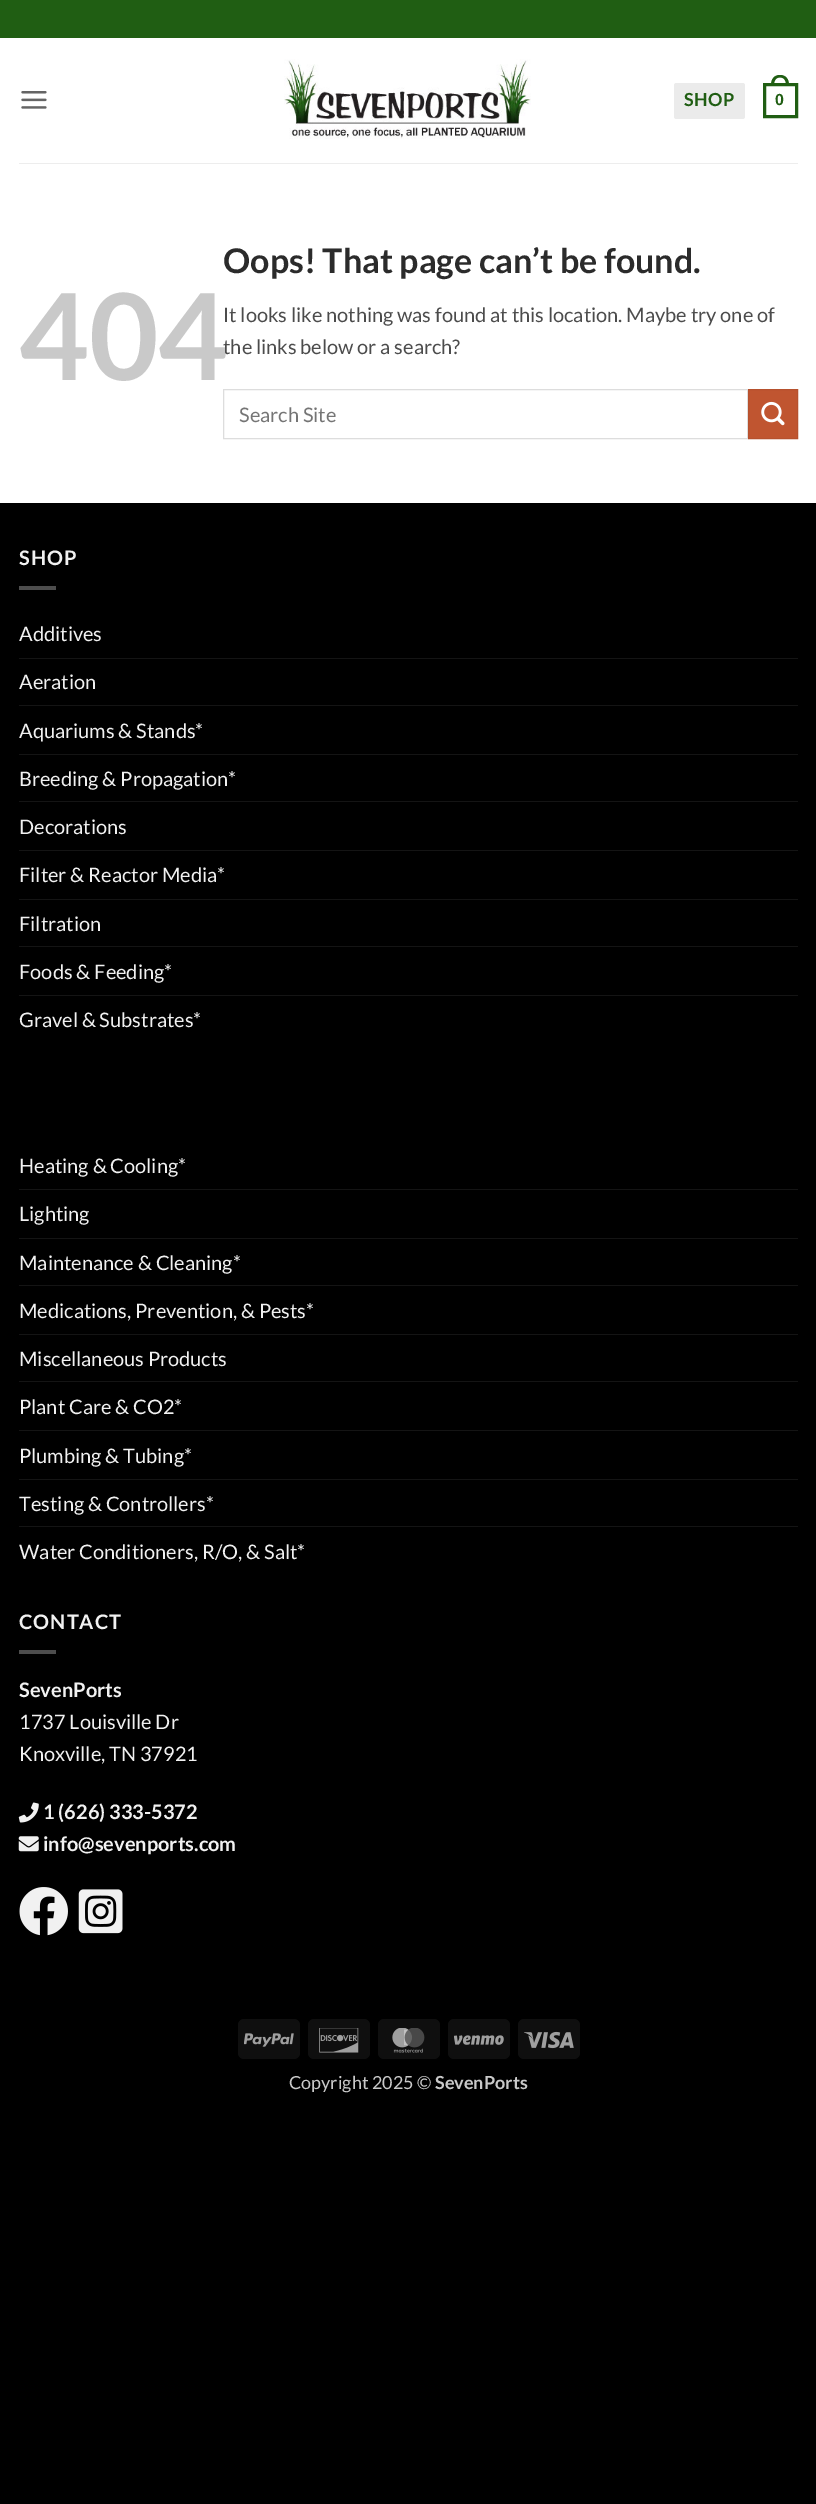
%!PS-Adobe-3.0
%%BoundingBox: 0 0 816 2504
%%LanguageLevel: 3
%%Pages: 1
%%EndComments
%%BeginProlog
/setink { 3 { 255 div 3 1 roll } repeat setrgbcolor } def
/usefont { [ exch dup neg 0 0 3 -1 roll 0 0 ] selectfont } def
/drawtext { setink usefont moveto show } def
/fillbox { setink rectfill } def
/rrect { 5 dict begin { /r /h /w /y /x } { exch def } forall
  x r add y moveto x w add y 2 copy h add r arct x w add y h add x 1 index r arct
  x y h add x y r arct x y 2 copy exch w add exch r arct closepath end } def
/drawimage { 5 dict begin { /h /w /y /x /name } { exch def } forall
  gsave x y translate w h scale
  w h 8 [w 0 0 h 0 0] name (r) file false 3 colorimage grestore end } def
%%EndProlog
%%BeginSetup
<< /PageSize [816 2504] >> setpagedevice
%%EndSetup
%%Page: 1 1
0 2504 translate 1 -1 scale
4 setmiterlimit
0 0 816 2504 0 0 0 fillbox
0 38 816 465 255 255 255 fillbox
0 0 816 38 32 94 19 fillbox
(assets/img1.rgb) 21 91 26 18 drawimage
(assets/img2.rgb) 284 59 247 80 drawimage
235 235 235 setink
674 83 71 36 2.5 rrect fill
/Lato-Bold 18 usefont
32 94 19 setink
684 106 moveto 0.5 0 (SHOP) ashow
3 setlinewidth
764.5 84.5 32 32 rectstroke
780 75 moveto 786 75 789 79.5 789 85 curveto 771 85 lineto 771 79.5 774 75 780 75 curveto closepath 780 77.5 moveto 784.5 77.5 786 81 786 85 curveto 774 85 lineto 774 81 775.5 77.5 780 77.5 curveto closepath eofill
(0) 775 105 /LiberationSans-Bold 16 32 94 19 drawtext
19 163 779 1 237 237 237 fillbox
(404) 19 380 /Lato-Bold 120 201 201 201 drawtext
(Oops! That page can’t be found.) 223 273 /Lato-Bold 34 43 43 43 drawtext
(It looks like nothing was found at this location. Maybe try one of) 223 322 /Lato-Regular 20 76 76 76 drawtext
(the links below or a search?) 223 354 /Lato-Regular 20 76 76 76 drawtext
221 221 221 setink
1 setlinewidth
223.5 389.5 524 49 rectstroke
(Search Site) 239 422 /Lato-Regular 20 117 117 117 drawtext
192 85 48 setink
748.5 389.5 moveto 797.5 389.5 lineto 797.5 438.5 lineto 748.5 438.5 lineto closepath gsave fill grestore
182 81 46 setink
stroke
(assets/img3.rgb) 761 401 24 25 drawimage
/Lato-Bold 20 usefont
241 241 241 setink
19 565 moveto 1 0 (SHOP) ashow
19 586 37 4 77 77 77 fillbox
(Additives) 19 641 /Lato-Regular 20 241 241 241 drawtext
19 658 779 1 20 20 20 fillbox
(Aeration) 19 689 /Lato-Regular 20 241 241 241 drawtext
19 705 779 1 20 20 20 fillbox
(Aquariums & Stands*) 19 738 /Lato-Regular 20 241 241 241 drawtext
19 754 779 1 20 20 20 fillbox
(Breeding & Propagation*) 19 786 /Lato-Regular 20 241 241 241 drawtext
19 801 779 1 20 20 20 fillbox
(Decorations) 19 834 /Lato-Regular 20 241 241 241 drawtext
19 850 779 1 20 20 20 fillbox
(Filter & Reactor Media*) 19 882 /Lato-Regular 20 241 241 241 drawtext
19 899 779 1 20 20 20 fillbox
(Filtration) 19 931 /Lato-Regular 20 241 241 241 drawtext
19 946 779 1 20 20 20 fillbox
(Foods & Feeding*) 19 979 /Lato-Regular 20 241 241 241 drawtext
19 995 779 1 20 20 20 fillbox
(Gravel & Substrates*) 19 1027 /Lato-Regular 20 241 241 241 drawtext
(Heating & Cooling*) 19 1173 /Lato-Regular 20 241 241 241 drawtext
19 1189 779 1 20 20 20 fillbox
(Lighting) 19 1221 /Lato-Regular 20 241 241 241 drawtext
19 1238 779 1 20 20 20 fillbox
(Maintenance & Cleaning*) 19 1270 /Lato-Regular 20 241 241 241 drawtext
19 1285 779 1 20 20 20 fillbox
(Medications, Prevention, & Pests*) 19 1318 /Lato-Regular 20 241 241 241 drawtext
19 1334 779 1 20 20 20 fillbox
(Miscellaneous Products) 19 1366 /Lato-Regular 20 241 241 241 drawtext
19 1381 779 1 20 20 20 fillbox
(Plant Care & CO2*) 19 1414 /Lato-Regular 20 241 241 241 drawtext
19 1430 779 1 20 20 20 fillbox
(Plumbing & Tubing*) 19 1463 /Lato-Regular 20 241 241 241 drawtext
19 1479 779 1 20 20 20 fillbox
(Testing & Controllers*) 19 1511 /Lato-Regular 20 241 241 241 drawtext
19 1526 779 1 20 20 20 fillbox
(Water Conditioners, R/O, & Salt*) 19 1559 /Lato-Regular 20 241 241 241 drawtext
/Lato-Bold 20 usefont
19 1629 moveto 1 0 (CONTACT) ashow
19 1650 37 4 77 77 77 fillbox
(SevenPorts) 19 1697 /Lato-Bold 20 241 241 241 drawtext
(1737 Louisville Dr) 19 1729 /Lato-Regular 20 241 241 241 drawtext
(Knoxville, TN 37921) 19 1761 /Lato-Regular 20 241 241 241 drawtext
(assets/img4.rgb) 18 1802 21 21 drawimage
(1 \(626\) 333-5372) 43 1819 /Lato-Bold 20 241 241 241 drawtext
(assets/img5.rgb) 18 1836 21 16 drawimage
(info@sevenports.com) 43 1851 /Lato-Bold 20 241 241 241 drawtext
(assets/img6.rgb) 19 1887 49 49 drawimage
(assets/img7.rgb) 78 1889 45 45 drawimage
15 15 15 setink
238 2019 62 40 6 rrect fill
(assets/img8.rgb) 244 2033 50 14 drawimage
308 2019 62 40 6 rrect fill
(assets/img9.rgb) 319 2028 40 25 drawimage
378 2019 62 40 6 rrect fill
(assets/img10.rgb) 392 2028 33 25 drawimage
448 2019 62 40 6 rrect fill
(assets/img11.rgb) 454 2035 50 10 drawimage
518 2019 62 40 6 rrect fill
(assets/img12.rgb) 524 2031 50 18 drawimage
(Copyright 2025 ©) 289 2089 /Lato-Regular 18 201 201 201 drawtext
(SevenPorts) 435 2089 /Lato-Bold 18 201 201 201 drawtext
showpage
%%EOF
